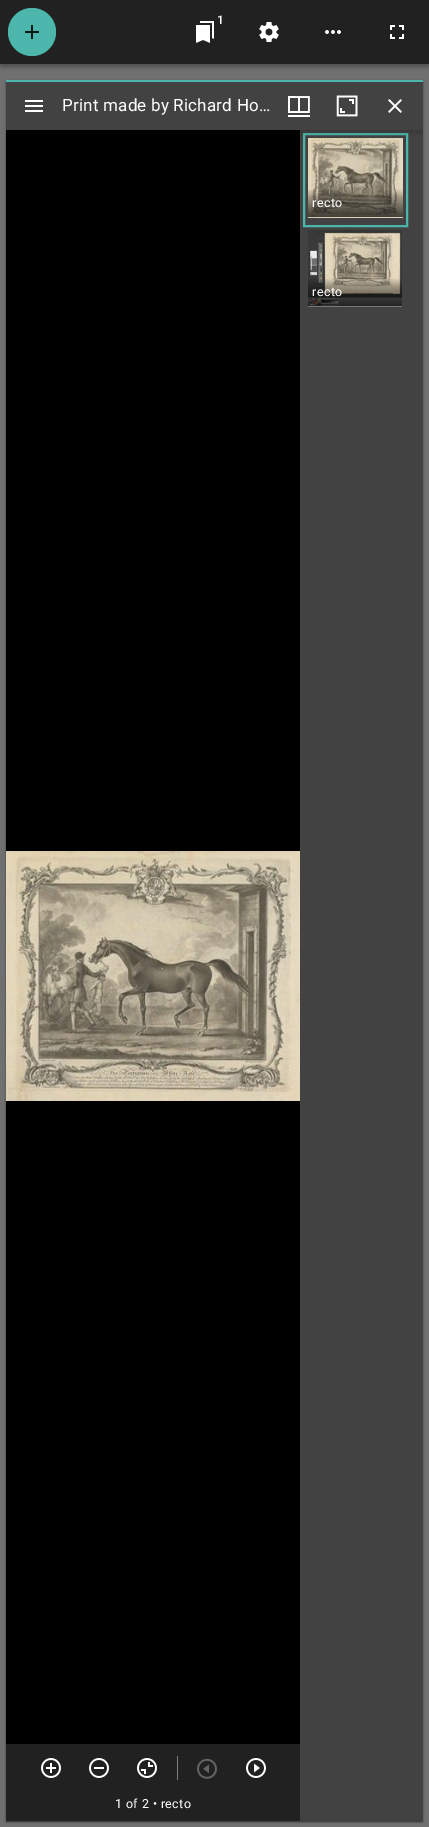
%!PS-Adobe-3.0
%%BoundingBox: 0 0 429 1827
%%LanguageLevel: 3
%%Pages: 1
%%EndComments
%%BeginProlog
/setink { 3 { 255 div 3 1 roll } repeat setrgbcolor } def
/usefont { [ exch dup neg 0 0 3 -1 roll 0 0 ] selectfont } def
/drawtext { setink usefont moveto show } def
/fillbox { setink rectfill } def
/setalpha { dup .setfillconstantalpha .setstrokeconstantalpha } def
/disc { newpath 0 360 arc closepath } def
/rrect { 5 dict begin { /r /h /w /y /x } { exch def } forall
  x r add y moveto x w add y 2 copy h add r arct x w add y h add x 1 index r arct
  x y h add x y r arct x y 2 copy exch w add exch r arct closepath end } def
/softshadow { 12 dict begin { /a /b /q /h /w /y /x } { exch def } forall gsave /was 0 def
  9 -2 -9 { dup b mul 4 div /e exch def 1 sub .425 mul 2.718 exch exp 1 add a .99 .min exch div /now exch def
    1 1 now sub 1 was sub div sub setalpha /was now def
    w h .min e 2 mul add 0 gt { x e sub y e sub w e 2 mul add h e 2 mul add
      q e add b .6 mul add w h .min 2 div e add .min 0 .max rrect fill } if } for grestore end } def
/drawimage { 5 dict begin { /h /w /y /x /name } { exch def } forall
  gsave x y translate w h scale
  w h 8 [w 0 0 h 0 0] name (r) file false 3 colorimage grestore end } def
%%EndProlog
%%BeginSetup
<< /PageSize [429 1827] /PageUsesTransparency true >> setpagedevice
%%EndSetup
%%Page: 1 1
0 .pushpdf14devicefilter
0 1827 translate 1 -1 scale
4 setmiterlimit
0 0 429 1827 112 112 112 fillbox
0 0 0 setink
7 83 415 1739 0 0.5 0.2 softshadow
6 81 417 1741 0 0.5 0.2 softshadow
6 81 417 1741 0 1.5 0.2 softshadow
6 130 294 1614 0 0 0 fillbox
300 130 123 1691 66 66 66 fillbox
77 182 172 setink
2 setlinewidth
304 134 103 92 rectstroke
(assets/img10.rgb) 308 138 95 80 drawimage
gsave
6 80 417 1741 rectclip
0 0 0 setink
6 84 417 50 0 2.5 0.14 softshadow
grestore
6 80 417 2 77 182 172 fillbox
0 0 0 setink
0 1 429 64 0 5 0.12 softshadow
0 4 429 64 0 2.5 0.14 softshadow
1 3 427 62 0 2 0.2 softshadow
0 0 429 64 33 33 33 fillbox
77 182 172 setink
32 32 24 disc fill
(assets/img1.rgb) 25 25 14 14 drawimage
(1) 217 24 /Roboto-Medium 12 255 255 255 drawtext
(assets/img2.rgb) 196 21 18 22 drawimage
(assets/img3.rgb) 259 22 20 20 drawimage
(assets/img4.rgb) 325 30 16 4 drawimage
(assets/img5.rgb) 390 25 14 14 drawimage
6 82 417 48 66 66 66 fillbox
(assets/img6.rgb) 25 100 18 12 drawimage
/Roboto-Regular 17 usefont
255 255 255 setink
62 111 moveto 0.2 0 (Print made by Richard Ho…) ashow
(assets/img7.rgb) 288 96 22 21 drawimage
(assets/img8.rgb) 336 95 22 22 drawimage
(assets/img9.rgb) 388 99 14 14 drawimage
/Roboto-Regular 12.5 usefont
312 207 moveto 0.4 0 (recto) ashow
(assets/img11.rgb) 308 230 94 77 drawimage
312 296 moveto 0.4 0 (recto) ashow
(assets/img12.rgb) 6 851 294 250 drawimage
6 1744 294 77 33 33 33 fillbox
(assets/img13.rgb) 41 1758 20 20 drawimage
(assets/img14.rgb) 89 1758 20 20 drawimage
(assets/img15.rgb) 137 1758 20 20 drawimage
177 1756 1 24 128 128 128 fillbox
(assets/img16.rgb) 197 1758 20 21 drawimage
(assets/img17.rgb) 246 1758 20 20 drawimage
255 255 255 setink
115 1808 moveto 0.4 0 (1 of 2 • recto) ashow
.poppdf14devicefilter showpage
%%EOF
